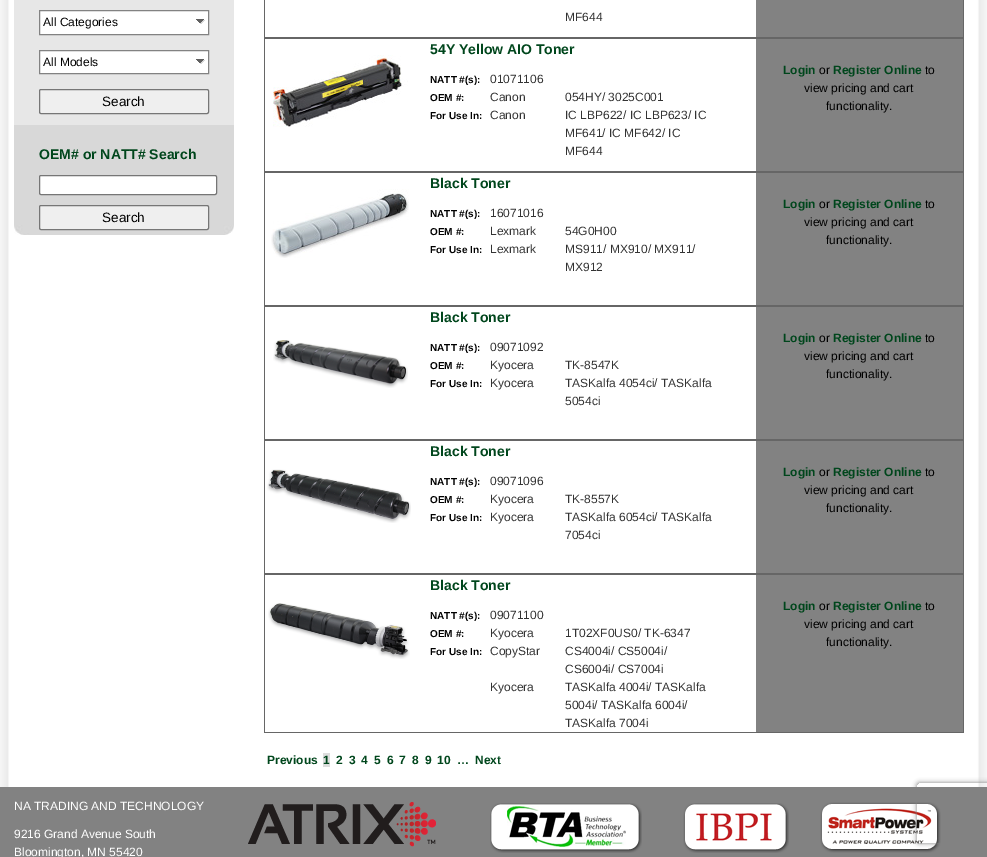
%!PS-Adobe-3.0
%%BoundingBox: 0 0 987 857
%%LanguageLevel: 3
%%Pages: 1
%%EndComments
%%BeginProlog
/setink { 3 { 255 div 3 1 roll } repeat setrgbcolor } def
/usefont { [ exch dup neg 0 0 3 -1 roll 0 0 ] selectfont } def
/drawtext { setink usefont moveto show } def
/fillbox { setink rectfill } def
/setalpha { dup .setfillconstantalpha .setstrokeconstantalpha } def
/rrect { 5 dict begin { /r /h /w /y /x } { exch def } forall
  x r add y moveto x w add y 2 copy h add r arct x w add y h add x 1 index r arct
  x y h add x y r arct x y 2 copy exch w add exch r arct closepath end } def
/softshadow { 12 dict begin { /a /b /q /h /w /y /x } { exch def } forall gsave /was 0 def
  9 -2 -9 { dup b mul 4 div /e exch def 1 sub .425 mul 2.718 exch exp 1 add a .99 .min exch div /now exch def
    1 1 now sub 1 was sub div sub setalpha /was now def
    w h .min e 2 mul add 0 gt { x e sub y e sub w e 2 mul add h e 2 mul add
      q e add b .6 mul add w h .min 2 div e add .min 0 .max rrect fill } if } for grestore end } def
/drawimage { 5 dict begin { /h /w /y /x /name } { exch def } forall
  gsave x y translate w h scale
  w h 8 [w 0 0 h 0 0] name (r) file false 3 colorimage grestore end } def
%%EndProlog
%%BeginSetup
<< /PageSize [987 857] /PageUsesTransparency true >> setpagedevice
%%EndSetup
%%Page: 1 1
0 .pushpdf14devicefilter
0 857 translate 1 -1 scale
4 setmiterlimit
0 0 987 857 255 255 255 fillbox
(assets/img1.rgb) 0 0 987 787 drawimage
(assets/img2.rgb) 14 0 220 235 drawimage
39.5 10.5 moveto 208.5 10.5 lineto 208.5 34.5 lineto 39.5 34.5 lineto closepath gsave fill grestore
130 130 130 setink
stroke
(All Categories) 43 26 /LiberationSans-Regular 12 0 0 0 drawtext
(assets/img3.rgb) 196 19 9 5 drawimage
255 255 255 setink
39.5 50.5 moveto 208.5 50.5 lineto 208.5 73.5 lineto 39.5 73.5 lineto closepath gsave fill grestore
130 130 130 setink
stroke
(All Models) 43 66 /LiberationSans-Regular 12 0 0 0 drawtext
(assets/img3.rgb) 196 59 9 5 drawimage
239 239 239 setink
39.5 89.5 169 24 1.5 rrect gsave fill grestore
118 118 118 setink
stroke
(Search) 102 106 /LiberationSans-Regular 13.5 0 0 0 drawtext
(OEM# or NATT# Search) 39 159 /LiberationSans-Bold 14 0 70 28 drawtext
255 255 255 setink
39.5 175.5 177 19 1.5 rrect gsave fill grestore
118 118 118 setink
stroke
239 239 239 setink
39.5 205.5 169 24 1.5 rrect gsave fill grestore
118 118 118 setink
stroke
(Search) 102 222 /LiberationSans-Regular 13.5 0 0 0 drawtext
963 0 1 38 102 102 102 fillbox
264 37 700 2 102 102 102 fillbox
264 0 1 38 102 102 102 fillbox
(MF644) 565 21 /LiberationSans-Regular 12 51 51 51 drawtext
756 0 207 37 130 130 130 fillbox
963 38 1 134 102 102 102 fillbox
264 171 700 2 102 102 102 fillbox
264 38 1 134 102 102 102 fillbox
(assets/img4.rgb) 273 55 135 72 drawimage
(54Y Yellow AIO Toner) 430 54 /LiberationSans-Bold 14 0 70 28 drawtext
(NATT #\(s\):) 430 83 /LiberationSans-Bold 10 0 0 0 drawtext
(01071106) 490 83 /LiberationSans-Regular 12 51 51 51 drawtext
(OEM #:) 430 101 /LiberationSans-Bold 10 0 0 0 drawtext
(Canon) 490 101 /LiberationSans-Regular 12 51 51 51 drawtext
(054HY/ 3025C001) 565 101 /LiberationSans-Regular 12 51 51 51 drawtext
(For Use In:) 430 119 /LiberationSans-Bold 10 0 0 0 drawtext
(Canon) 490 119 /LiberationSans-Regular 12 51 51 51 drawtext
(IC LBP622/ IC LBP623/ IC) 565 119 /LiberationSans-Regular 12 51 51 51 drawtext
(MF641/ IC MF642/ IC) 565 137 /LiberationSans-Regular 12 51 51 51 drawtext
(MF644) 565 155 /LiberationSans-Regular 12 51 51 51 drawtext
756 39 207 132 130 130 130 fillbox
(Login) 783 74 /LiberationSans-Bold 12 0 70 28 drawtext
(or) 819 74 /LiberationSans-Regular 12 0 0 0 drawtext
(Register Online) 833 74 /LiberationSans-Bold 12 0 70 28 drawtext
(to) 925 74 /LiberationSans-Regular 12 0 0 0 drawtext
(view pricing and cart) 804 92 /LiberationSans-Regular 12 0 0 0 drawtext
(functionality.) 826 110 /LiberationSans-Regular 12 0 0 0 drawtext
963 172 1 134 102 102 102 fillbox
264 305 700 2 102 102 102 fillbox
264 172 1 134 102 102 102 fillbox
(assets/img5.rgb) 271 189 138 69 drawimage
(Black Toner) 430 188 /LiberationSans-Bold 14 0 70 28 drawtext
(NATT #\(s\):) 430 217 /LiberationSans-Bold 10 0 0 0 drawtext
(16071016) 490 217 /LiberationSans-Regular 12 51 51 51 drawtext
(OEM #:) 430 235 /LiberationSans-Bold 10 0 0 0 drawtext
(Lexmark) 490 235 /LiberationSans-Regular 12 51 51 51 drawtext
(54G0H00) 565 235 /LiberationSans-Regular 12 51 51 51 drawtext
(For Use In:) 430 253 /LiberationSans-Bold 10 0 0 0 drawtext
(Lexmark) 490 253 /LiberationSans-Regular 12 51 51 51 drawtext
(MS911/ MX910/ MX911/) 565 253 /LiberationSans-Regular 12 51 51 51 drawtext
(MX912) 565 271 /LiberationSans-Regular 12 51 51 51 drawtext
756 173 207 132 130 130 130 fillbox
(Login) 783 208 /LiberationSans-Bold 12 0 70 28 drawtext
(or) 819 208 /LiberationSans-Regular 12 0 0 0 drawtext
(Register Online) 833 208 /LiberationSans-Bold 12 0 70 28 drawtext
(to) 925 208 /LiberationSans-Regular 12 0 0 0 drawtext
(view pricing and cart) 804 226 /LiberationSans-Regular 12 0 0 0 drawtext
(functionality.) 826 244 /LiberationSans-Regular 12 0 0 0 drawtext
963 306 1 134 102 102 102 fillbox
264 439 700 2 102 102 102 fillbox
264 306 1 134 102 102 102 fillbox
(assets/img6.rgb) 273 340 135 48 drawimage
(Black Toner) 430 322 /LiberationSans-Bold 14 0 70 28 drawtext
(NATT #\(s\):) 430 351 /LiberationSans-Bold 10 0 0 0 drawtext
(09071092) 490 351 /LiberationSans-Regular 12 51 51 51 drawtext
(OEM #:) 430 369 /LiberationSans-Bold 10 0 0 0 drawtext
(Kyocera) 490 369 /LiberationSans-Regular 12 51 51 51 drawtext
(TK-8547K) 565 369 /LiberationSans-Regular 12 51 51 51 drawtext
(For Use In:) 430 387 /LiberationSans-Bold 10 0 0 0 drawtext
(Kyocera) 490 387 /LiberationSans-Regular 12 51 51 51 drawtext
(TASKalfa 4054ci/ TASKalfa) 565 387 /LiberationSans-Regular 12 51 51 51 drawtext
(5054ci) 565 405 /LiberationSans-Regular 12 51 51 51 drawtext
756 307 207 132 130 130 130 fillbox
(Login) 783 342 /LiberationSans-Bold 12 0 70 28 drawtext
(or) 819 342 /LiberationSans-Regular 12 0 0 0 drawtext
(Register Online) 833 342 /LiberationSans-Bold 12 0 70 28 drawtext
(to) 925 342 /LiberationSans-Regular 12 0 0 0 drawtext
(view pricing and cart) 804 360 /LiberationSans-Regular 12 0 0 0 drawtext
(functionality.) 826 378 /LiberationSans-Regular 12 0 0 0 drawtext
963 440 1 134 102 102 102 fillbox
264 573 700 2 102 102 102 fillbox
264 440 1 134 102 102 102 fillbox
(assets/img7.rgb) 267 469 144 54 drawimage
(Black Toner) 430 456 /LiberationSans-Bold 14 0 70 28 drawtext
(NATT #\(s\):) 430 485 /LiberationSans-Bold 10 0 0 0 drawtext
(09071096) 490 485 /LiberationSans-Regular 12 51 51 51 drawtext
(OEM #:) 430 503 /LiberationSans-Bold 10 0 0 0 drawtext
(Kyocera) 490 503 /LiberationSans-Regular 12 51 51 51 drawtext
(TK-8557K) 565 503 /LiberationSans-Regular 12 51 51 51 drawtext
(For Use In:) 430 521 /LiberationSans-Bold 10 0 0 0 drawtext
(Kyocera) 490 521 /LiberationSans-Regular 12 51 51 51 drawtext
(TASKalfa 6054ci/ TASKalfa) 565 521 /LiberationSans-Regular 12 51 51 51 drawtext
(7054ci) 565 539 /LiberationSans-Regular 12 51 51 51 drawtext
756 441 207 132 130 130 130 fillbox
(Login) 783 476 /LiberationSans-Bold 12 0 70 28 drawtext
(or) 819 476 /LiberationSans-Regular 12 0 0 0 drawtext
(Register Online) 833 476 /LiberationSans-Bold 12 0 70 28 drawtext
(to) 925 476 /LiberationSans-Regular 12 0 0 0 drawtext
(view pricing and cart) 804 494 /LiberationSans-Regular 12 0 0 0 drawtext
(functionality.) 826 512 /LiberationSans-Regular 12 0 0 0 drawtext
963 574 1 159 102 102 102 fillbox
264 732 700 1 102 102 102 fillbox
264 574 1 159 102 102 102 fillbox
(assets/img8.rgb) 268 603 142 56 drawimage
(Black Toner) 430 590 /LiberationSans-Bold 14 0 70 28 drawtext
(NATT #\(s\):) 430 619 /LiberationSans-Bold 10 0 0 0 drawtext
(09071100) 490 619 /LiberationSans-Regular 12 51 51 51 drawtext
(OEM #:) 430 637 /LiberationSans-Bold 10 0 0 0 drawtext
(Kyocera) 490 637 /LiberationSans-Regular 12 51 51 51 drawtext
(1T02XF0US0/ TK-6347) 565 637 /LiberationSans-Regular 12 51 51 51 drawtext
(For Use In:) 430 655 /LiberationSans-Bold 10 0 0 0 drawtext
(CopyStar) 490 655 /LiberationSans-Regular 12 51 51 51 drawtext
(CS4004i/ CS5004i/) 565 655 /LiberationSans-Regular 12 51 51 51 drawtext
(CS6004i/ CS7004i) 565 673 /LiberationSans-Regular 12 51 51 51 drawtext
(Kyocera) 490 691 /LiberationSans-Regular 12 51 51 51 drawtext
(TASKalfa 4004i/ TASKalfa) 565 691 /LiberationSans-Regular 12 51 51 51 drawtext
(5004i/ TASKalfa 6004i/) 565 709 /LiberationSans-Regular 12 51 51 51 drawtext
(TASKalfa 7004i) 565 727 /LiberationSans-Regular 12 51 51 51 drawtext
756 575 207 157 130 130 130 fillbox
(Login) 783 610 /LiberationSans-Bold 12 0 70 28 drawtext
(or) 819 610 /LiberationSans-Regular 12 0 0 0 drawtext
(Register Online) 833 610 /LiberationSans-Bold 12 0 70 28 drawtext
(to) 925 610 /LiberationSans-Regular 12 0 0 0 drawtext
(view pricing and cart) 804 628 /LiberationSans-Regular 12 0 0 0 drawtext
(functionality.) 826 646 /LiberationSans-Regular 12 0 0 0 drawtext
(Previous) 267 764 /LiberationSans-Bold 12 0 70 28 drawtext
323 753 7 14 221 221 221 fillbox
(1) 323 764 /LiberationSans-Bold 12 0 70 28 drawtext
(2) 336 764 /LiberationSans-Bold 12 0 70 28 drawtext
(3) 349 764 /LiberationSans-Bold 12 0 70 28 drawtext
(4) 361 764 /LiberationSans-Bold 12 0 70 28 drawtext
(5) 374 764 /LiberationSans-Bold 12 0 70 28 drawtext
(6) 387 764 /LiberationSans-Bold 12 0 70 28 drawtext
(7) 399 764 /LiberationSans-Bold 12 0 70 28 drawtext
(8) 412 764 /LiberationSans-Bold 12 0 70 28 drawtext
(9) 425 764 /LiberationSans-Bold 12 0 70 28 drawtext
(10) 437 764 /LiberationSans-Bold 12 0 70 28 drawtext
(…) 457 764 /LiberationSans-Bold 12 0 70 28 drawtext
(Next) 475 764 /LiberationSans-Bold 12 0 70 28 drawtext
0 787 987 70 130 130 130 fillbox
(NA TRADING AND TECHNOLOGY) 14 810 /LiberationSans-Regular 12 255 255 255 drawtext
(9216 Grand Avenue South) 14 838 /LiberationSans-Regular 12 255 255 255 drawtext
(Bloomington, MN 55420) 14 856 /LiberationSans-Regular 12 255 255 255 drawtext
(assets/img9.rgb) 248 802 188 45 drawimage
(assets/img10.rgb) 490 803 152 50 drawimage
(assets/img11.rgb) 683 803 106 50 drawimage
(assets/img12.rgb) 820 802 121 51 drawimage
gsave
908 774 moveto 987 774 lineto 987 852 lineto 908 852 lineto closepath 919 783 moveto 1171 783 lineto 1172 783 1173 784 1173 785 curveto 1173 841 lineto 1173 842 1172 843 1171 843 curveto 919 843 lineto 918 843 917 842 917 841 curveto 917 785 lineto 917 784 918 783 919 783 curveto closepath eoclip newpath
128 128 128 setink
917 783 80 60 2 2.5 1 softshadow
grestore
.poppdf14devicefilter showpage
%%EOF
